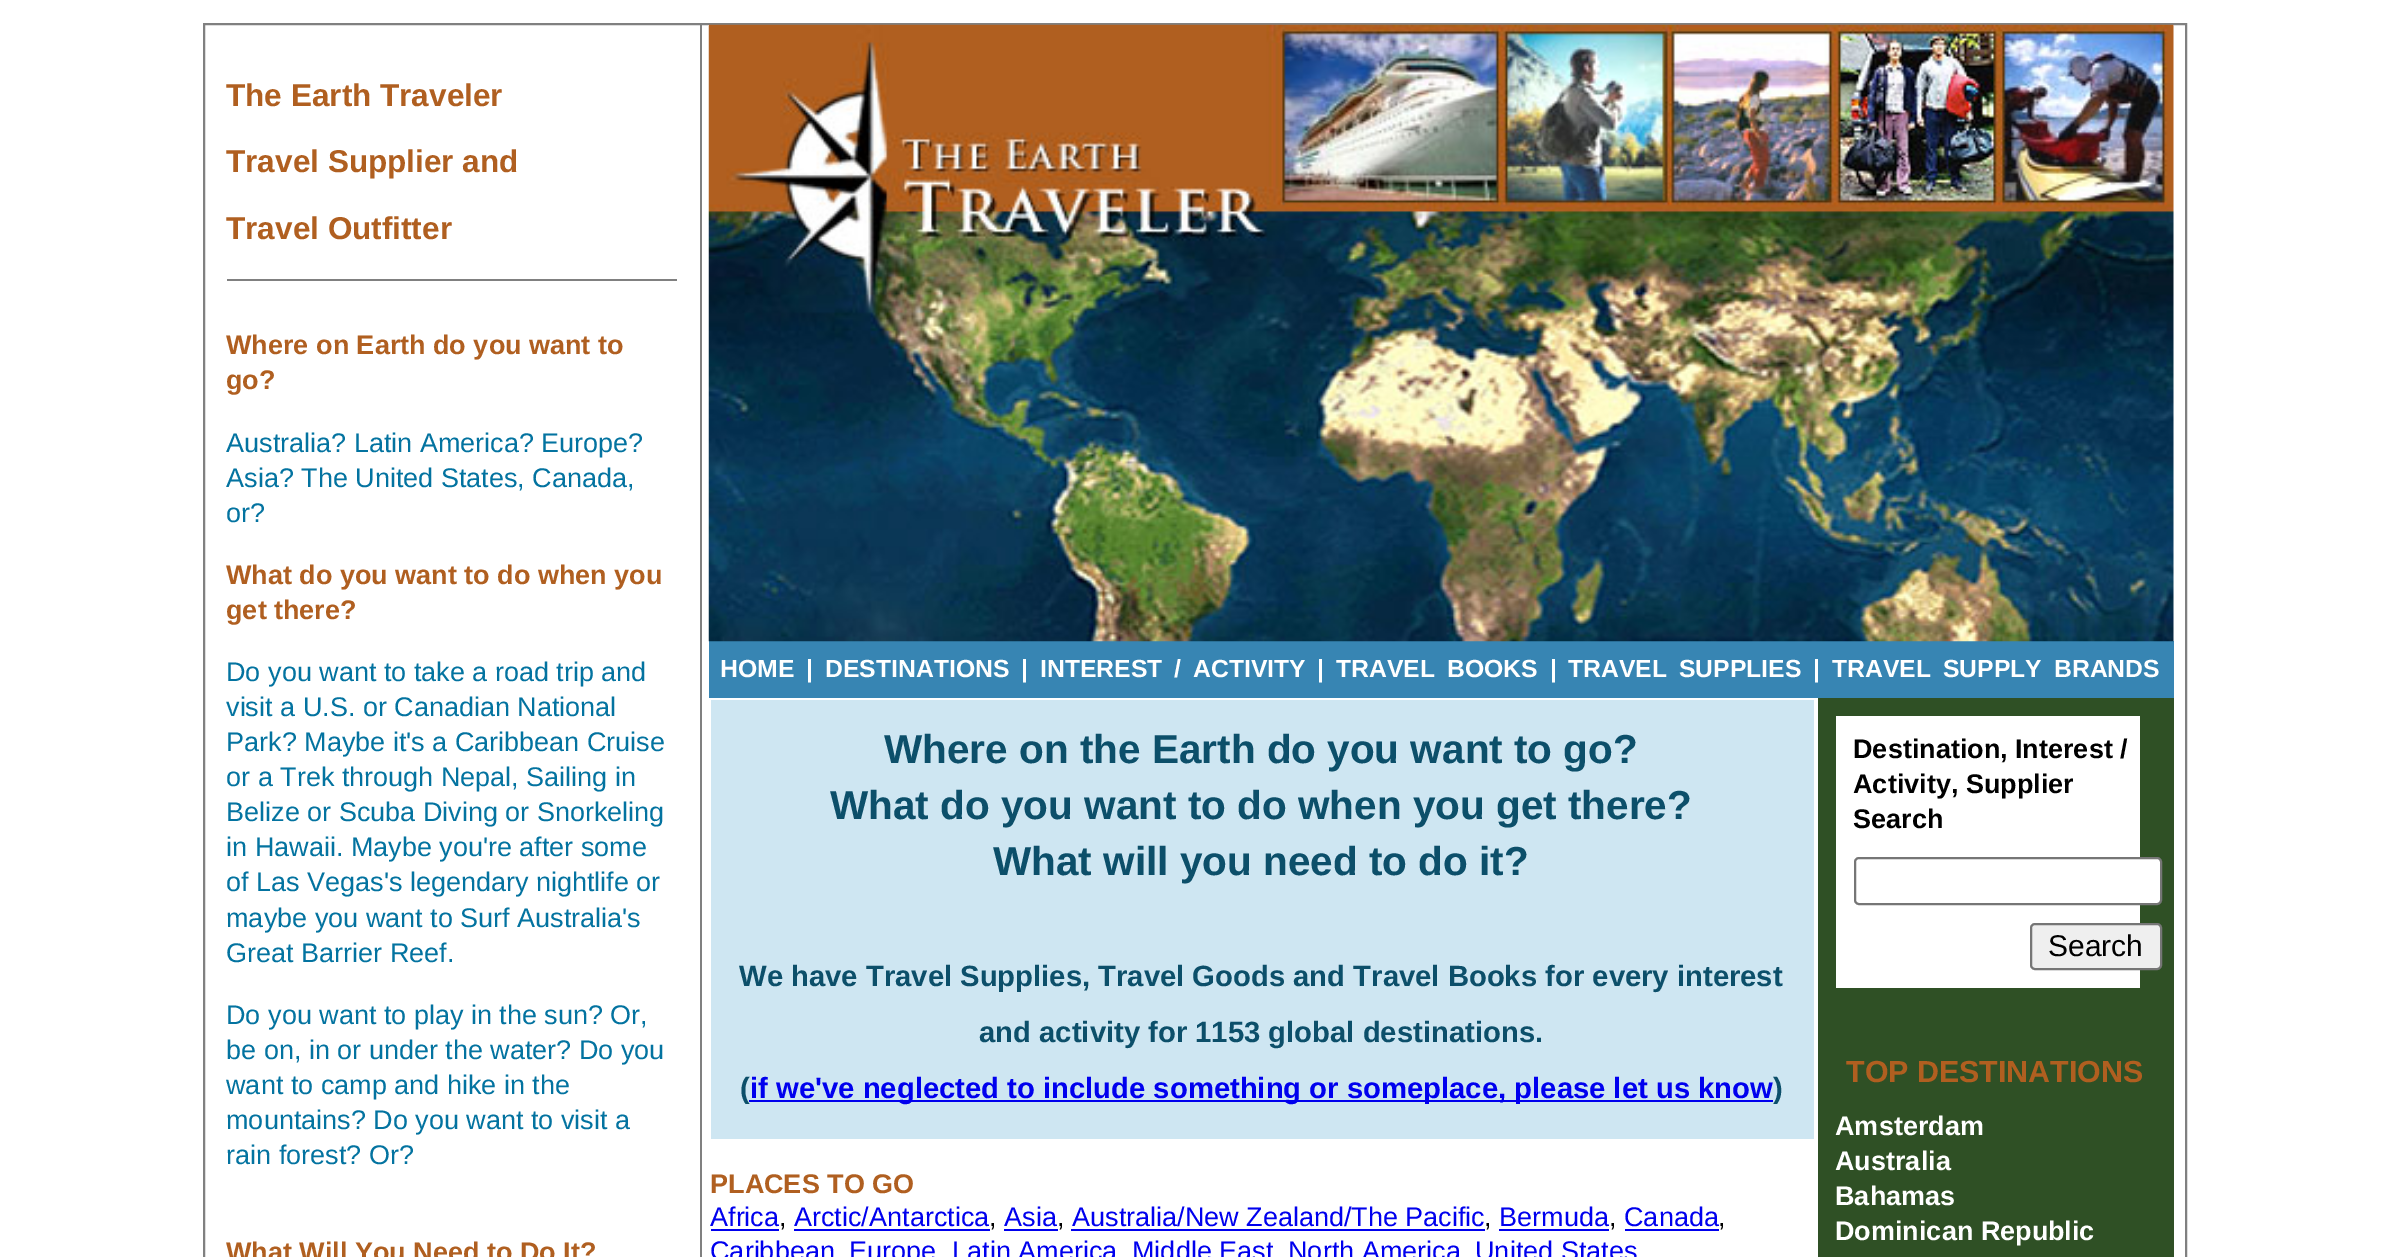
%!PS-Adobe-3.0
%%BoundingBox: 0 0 2386 1257
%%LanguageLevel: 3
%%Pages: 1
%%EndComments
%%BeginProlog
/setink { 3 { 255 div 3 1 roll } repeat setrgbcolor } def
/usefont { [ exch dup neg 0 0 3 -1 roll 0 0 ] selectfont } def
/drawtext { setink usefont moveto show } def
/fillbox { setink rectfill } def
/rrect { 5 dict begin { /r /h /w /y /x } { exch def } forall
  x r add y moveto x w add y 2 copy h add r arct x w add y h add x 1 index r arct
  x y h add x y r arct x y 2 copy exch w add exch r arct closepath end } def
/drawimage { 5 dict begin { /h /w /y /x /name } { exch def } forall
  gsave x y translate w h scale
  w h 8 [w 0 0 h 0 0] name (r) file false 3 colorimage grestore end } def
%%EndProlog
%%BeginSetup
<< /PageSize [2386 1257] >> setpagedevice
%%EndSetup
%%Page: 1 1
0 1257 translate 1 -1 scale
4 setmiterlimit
0 0 2386 1257 255 255 255 fillbox
128 128 128 setink
2 setlinewidth
204 24 1982 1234 rectstroke
(The Earth Traveler) 226 106 /LiberationSans-Bold 31.5 176 95 32 drawtext
(Travel Supplier and) 226 172 /LiberationSans-Bold 31.5 176 95 32 drawtext
(Travel Outfitter) 226 239 /LiberationSans-Bold 31.5 176 95 32 drawtext
227 279 450 2 128 128 128 fillbox
(Where on Earth do you want to) 226 354 /LiberationSans-Bold 27 176 95 32 drawtext
(go?) 226 389 /LiberationSans-Bold 27 176 95 32 drawtext
(Australia? Latin America? Europe?) 226 452 /LiberationSans-Regular 27 3 115 160 drawtext
(Asia? The United States, Canada,) 226 487 /LiberationSans-Regular 27 3 115 160 drawtext
(or?) 226 522 /LiberationSans-Regular 27 3 115 160 drawtext
(What do you want to do when you) 226 584 /LiberationSans-Bold 27 176 95 32 drawtext
(get there?) 226 619 /LiberationSans-Bold 27 176 95 32 drawtext
(Do you want to take a road trip and) 226 681 /LiberationSans-Regular 27 3 115 160 drawtext
(visit a U.S. or Canadian National) 226 716 /LiberationSans-Regular 27 3 115 160 drawtext
(Park? Maybe it's a Caribbean Cruise) 226 751 /LiberationSans-Regular 27 3 115 160 drawtext
(or a Trek through Nepal, Sailing in) 226 786 /LiberationSans-Regular 27 3 115 160 drawtext
(Belize or Scuba Diving or Snorkeling) 226 821 /LiberationSans-Regular 27 3 115 160 drawtext
(in Hawaii. Maybe you're after some) 226 856 /LiberationSans-Regular 27 3 115 160 drawtext
(of Las Vegas's legendary nightlife or) 226 891 /LiberationSans-Regular 27 3 115 160 drawtext
(maybe you want to Surf Australia's) 226 927 /LiberationSans-Regular 27 3 115 160 drawtext
(Great Barrier Reef.) 226 962 /LiberationSans-Regular 27 3 115 160 drawtext
(Do you want to play in the sun? Or,) 226 1024 /LiberationSans-Regular 27 3 115 160 drawtext
(be on, in or under the water? Do you) 226 1059 /LiberationSans-Regular 27 3 115 160 drawtext
(want to camp and hike in the) 226 1094 /LiberationSans-Regular 27 3 115 160 drawtext
(mountains? Do you want to visit a) 226 1129 /LiberationSans-Regular 27 3 115 160 drawtext
(rain forest? Or?) 226 1164 /LiberationSans-Regular 27 3 115 160 drawtext
(What Will You Need to Do It?) 226 1261 /LiberationSans-Bold 27 176 95 32 drawtext
700 25 2 1232 128 128 128 fillbox
709 641 1465 57 55 133 179 fillbox
(assets/img1.rgb) 708 24 1466 618 drawimage
(HOME) 720 677 /LiberationSans-Bold 24.75 255 255 255 drawtext
(|) 806 677 /LiberationSans-Bold 24.75 255 255 255 drawtext
(DESTINATIONS) 825 677 /LiberationSans-Bold 24.75 255 255 255 drawtext
(|) 1021 677 /LiberationSans-Bold 24.75 255 255 255 drawtext
1040 677 moveto 5 0 32 (INTEREST / ACTIVITY) widthshow
(|) 1317 677 /LiberationSans-Bold 24.75 255 255 255 drawtext
1336 677 moveto 5 0 32 (TRAVEL BOOKS) widthshow
(|) 1550 677 /LiberationSans-Bold 24.75 255 255 255 drawtext
1568 677 moveto 5 0 32 (TRAVEL SUPPLIES) widthshow
(|) 1813 677 /LiberationSans-Bold 24.75 255 255 255 drawtext
1832 677 moveto 5 0 32 (TRAVEL SUPPLY BRANDS) widthshow
711 700 1103 439 206 230 242 fillbox
(Where on the Earth do you want to go?) 884 763 /LiberationSans-Bold 40.5 12 79 106 drawtext
(What do you want to do when you get there?) 830 819 /LiberationSans-Bold 40.5 12 79 106 drawtext
(What will you need to do it?) 993 875 /LiberationSans-Bold 40.5 12 79 106 drawtext
(We have Travel Supplies, Travel Goods and Travel Books for every interest) 739 986 /LiberationSans-Bold 29.25 12 79 106 drawtext
(and activity for 1153 global destinations.) 979 1042 /LiberationSans-Bold 29.25 12 79 106 drawtext
(\() 740 1098 /LiberationSans-Bold 29.25 12 79 106 drawtext
749 1100 1024 2 0 0 238 fillbox
(if we've neglected to include something or someplace, please let us know) 750 1098 /LiberationSans-Bold 29.25 0 0 238 drawtext
(\)) 1773 1098 /LiberationSans-Bold 29.25 12 79 106 drawtext
(PLACES TO GO) 710 1193 /LiberationSans-Bold 27 176 95 32 drawtext
(Africa) 710 1226 /LiberationSans-Regular 27 0 0 238 drawtext
711 1229 68 2 0 0 238 fillbox
(,) 779 1226 /LiberationSans-Regular 27 0 0 0 drawtext
(Arctic/Antarctica) 794 1226 /LiberationSans-Regular 27 0 0 238 drawtext
794 1229 196 2 0 0 238 fillbox
(,) 989 1226 /LiberationSans-Regular 27 0 0 0 drawtext
(Asia) 1004 1226 /LiberationSans-Regular 27 0 0 238 drawtext
1004 1229 54 2 0 0 238 fillbox
(,) 1057 1226 /LiberationSans-Regular 27 0 0 0 drawtext
(Australia/New Zealand/The Pacific) 1072 1226 /LiberationSans-Regular 27 0 0 238 drawtext
1071 1229 414 2 0 0 238 fillbox
(,) 1484 1226 /LiberationSans-Regular 27 0 0 0 drawtext
(Bermuda) 1499 1226 /LiberationSans-Regular 27 0 0 238 drawtext
1499 1229 110 2 0 0 238 fillbox
(,) 1609 1226 /LiberationSans-Regular 27 0 0 0 drawtext
(Canada) 1624 1226 /LiberationSans-Regular 27 0 0 238 drawtext
1625 1229 94 2 0 0 238 fillbox
(,) 1718 1226 /LiberationSans-Regular 27 0 0 0 drawtext
(Caribbean) 710 1260 /LiberationSans-Regular 27 0 0 238 drawtext
(Europe) 849 1260 /LiberationSans-Regular 27 0 0 238 drawtext
(Latin America) 952 1260 /LiberationSans-Regular 27 0 0 238 drawtext
(Middle East) 1132 1260 /LiberationSans-Regular 27 0 0 238 drawtext
(North America) 1288 1260 /LiberationSans-Regular 27 0 0 238 drawtext
(United States) 1475 1260 /LiberationSans-Regular 27 0 0 238 drawtext
1818 698 356 559 47 80 37 fillbox
1836 716 304 272 255 255 255 fillbox
(Destination, Interest /) 1853 758 /LiberationSans-Bold 27 0 0 0 drawtext
(Activity, Supplier) 1853 793 /LiberationSans-Bold 27 0 0 0 drawtext
(Search) 1853 828 /LiberationSans-Bold 27 0 0 0 drawtext
255 255 255 setink
1855 858 306 46 4 rrect gsave fill grestore
118 118 118 setink
stroke
239 239 239 setink
2031 924 130 45 4 rrect gsave fill grestore
118 118 118 setink
stroke
(Search) 2048 956 /LiberationSans-Regular 30 0 0 0 drawtext
(TOP DESTINATIONS) 1846 1082 /LiberationSans-Bold 30.4 176 95 32 drawtext
(Amsterdam) 1835 1135 /LiberationSans-Bold 27 255 255 255 drawtext
(Australia) 1835 1170 /LiberationSans-Bold 27 255 255 255 drawtext
(Bahamas) 1835 1205 /LiberationSans-Bold 27 255 255 255 drawtext
(Dominican Republic) 1835 1240 /LiberationSans-Bold 27 255 255 255 drawtext
showpage
%%EOF
